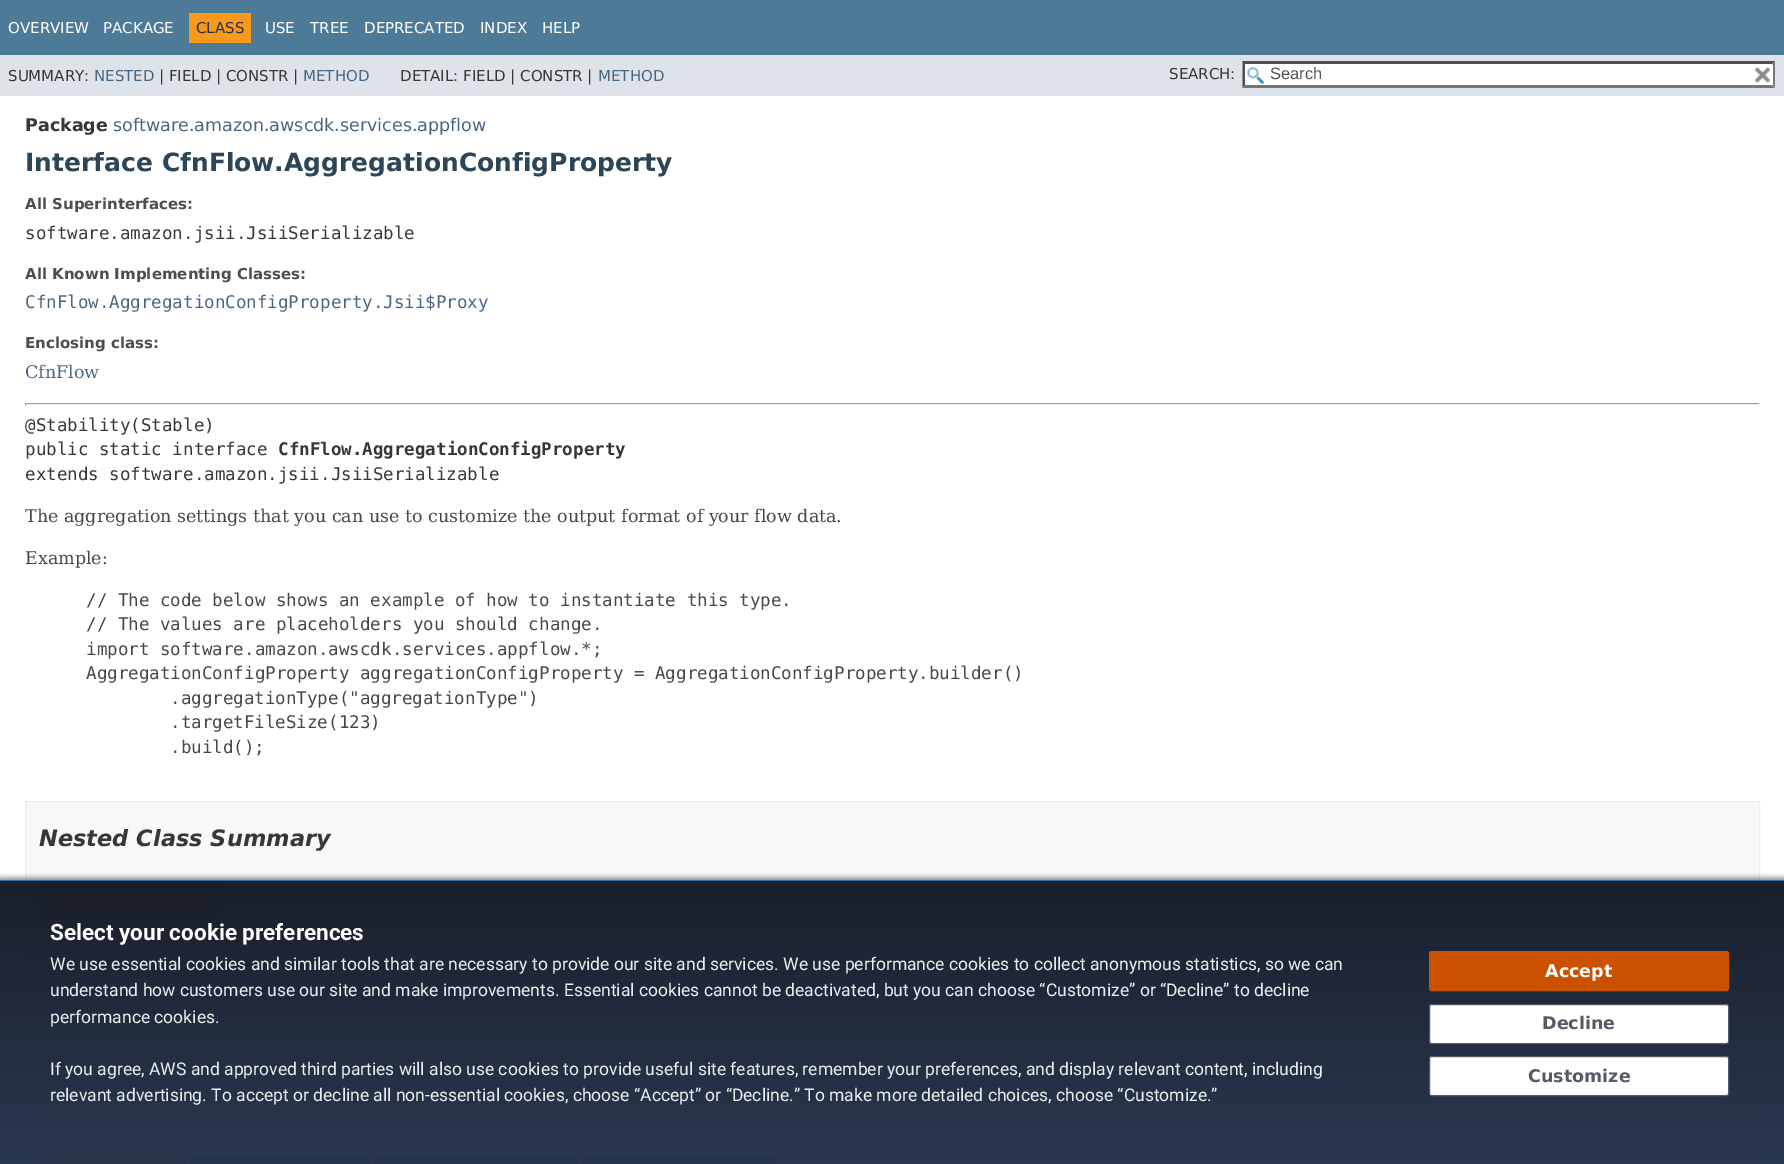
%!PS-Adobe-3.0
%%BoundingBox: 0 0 1784 1164
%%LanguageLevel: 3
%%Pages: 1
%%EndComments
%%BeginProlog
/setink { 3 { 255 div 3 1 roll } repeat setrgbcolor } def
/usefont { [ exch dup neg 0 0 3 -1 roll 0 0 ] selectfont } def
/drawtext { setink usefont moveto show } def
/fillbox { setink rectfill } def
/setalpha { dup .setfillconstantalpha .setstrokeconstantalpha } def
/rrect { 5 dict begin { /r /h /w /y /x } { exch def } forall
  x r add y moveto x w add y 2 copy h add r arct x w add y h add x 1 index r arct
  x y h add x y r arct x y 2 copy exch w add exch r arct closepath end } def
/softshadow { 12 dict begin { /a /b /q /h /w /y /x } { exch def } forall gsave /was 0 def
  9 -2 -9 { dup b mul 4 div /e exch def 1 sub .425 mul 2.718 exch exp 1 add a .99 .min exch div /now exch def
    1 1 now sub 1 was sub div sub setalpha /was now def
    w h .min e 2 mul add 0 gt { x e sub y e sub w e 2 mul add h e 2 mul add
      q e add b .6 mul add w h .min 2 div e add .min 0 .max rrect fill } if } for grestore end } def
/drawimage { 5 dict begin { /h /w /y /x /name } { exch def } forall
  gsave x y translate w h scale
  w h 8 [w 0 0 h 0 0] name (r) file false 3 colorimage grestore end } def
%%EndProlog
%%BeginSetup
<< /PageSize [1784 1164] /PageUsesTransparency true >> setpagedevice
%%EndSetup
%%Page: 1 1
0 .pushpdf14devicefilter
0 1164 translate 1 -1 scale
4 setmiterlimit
0 0 1784 1164 255 255 255 fillbox
0 0 1784 55 77 122 151 fillbox
(OVERVIEW) 8 33 /DejaVuSans-Regular 15 255 255 255 drawtext
(PACKAGE) 103 33 /DejaVuSans-Regular 15 255 255 255 drawtext
189 13 62 30 248 152 29 fillbox
(CLASS) 196 33 /DejaVuSans-Regular 15 37 52 65 drawtext
(USE) 265 33 /DejaVuSans-Regular 15 255 255 255 drawtext
(TREE) 310 33 /DejaVuSans-Regular 15 255 255 255 drawtext
(DEPRECATED) 364 33 /DejaVuSans-Regular 15 255 255 255 drawtext
(INDEX) 480 33 /DejaVuSans-Regular 15 255 255 255 drawtext
(HELP) 542 33 /DejaVuSans-Regular 15 255 255 255 drawtext
0 55 1784 41 222 227 233 fillbox
(SUMMARY:) 8 81 /DejaVuSans-Regular 15 53 56 51 drawtext
(NESTED) 94 81 /DejaVuSans-Regular 15 74 103 130 drawtext
(| FIELD | CONSTR |) 159 81 /DejaVuSans-Regular 15 53 56 51 drawtext
(METHOD) 303 81 /DejaVuSans-Regular 15 74 103 130 drawtext
(DETAIL: FIELD | CONSTR |) 400 81 /DejaVuSans-Regular 15 53 56 51 drawtext
(METHOD) 598 81 /DejaVuSans-Regular 15 74 103 130 drawtext
(SEARCH:) 1169 79 /DejaVuSans-Regular 15 53 56 51 drawtext
1243 61 532 27 255 255 255 fillbox
(assets/img1.rgb) 1247 67 17 17 drawimage
79 79 79 setink
1242 61 moveto 1775 61 lineto 1772 64 lineto 1245 64 lineto closepath fill
118 118 118 setink
1775 61 moveto 1775 87.5 lineto 1772.5 85 lineto 1772.5 64 lineto closepath fill
1775 88 moveto 1242 88 lineto 1245 85 lineto 1772 85 lineto closepath fill
79 79 79 setink
1242.5 87.5 moveto 1242.5 61 lineto 1245 64 lineto 1245 85 lineto closepath fill
(Search) 1270 79 /LiberationSans-Regular 16.5 84 84 84 drawtext
1772 65 1 20 255 255 255 fillbox
(assets/img2.rgb) 1754 67 17 16 drawimage
(Package) 25 131 /DejaVuSans-Bold 17.5 53 56 51 drawtext
(software.amazon.awscdk.services.appflow) 113 131 /DejaVuSans-Regular 17.5 74 103 130 drawtext
(Interface CfnFlow.AggregationConfigProperty) 25 171 /DejaVuSans-Bold 25 44 69 87 drawtext
(All Superinterfaces:) 25 209 /DejaVuSans-Bold 15 78 78 78 drawtext
(software.amazon.jsii.JsiiSerializable) 25 239 /DejaVuSansMono-Regular 17.5 53 56 51 drawtext
(All Known Implementing Classes:) 25 279 /DejaVuSans-Bold 15 78 78 78 drawtext
(CfnFlow.AggregationConfigProperty.Jsii$Proxy) 25 308 /DejaVuSansMono-Regular 17.5 74 103 130 drawtext
(Enclosing class:) 25 348 /DejaVuSans-Bold 15 78 78 78 drawtext
(CfnFlow) 25 378 /DejaVuSerif-Regular 17.5 74 103 130 drawtext
25 403 1735 1 159 159 159 fillbox
1759 403 1 3 238 238 238 fillbox
25 404 1735 1 238 238 238 fillbox
25 403 1 3 159 159 159 fillbox
(@Stability\(Stable\)) 25 431 /DejaVuSansMono-Regular 17.5 53 56 51 drawtext
(public static interface) 25 455 /DejaVuSansMono-Regular 17.5 53 56 51 drawtext
(CfnFlow.AggregationConfigProperty) 278 455 /DejaVuSansMono-Bold 17.5 53 56 51 drawtext
(extends software.amazon.jsii.JsiiSerializable) 25 480 /DejaVuSansMono-Regular 17.5 53 56 51 drawtext
(The aggregation settings that you can use to customize the output format of your flow data.) 25 522 /DejaVuSerif-Regular 17.5 71 71 71 drawtext
(Example:) 25 564 /DejaVuSerif-Regular 17.5 71 71 71 drawtext
(// The code below shows an example of how to instantiate this type.) 86 606 /DejaVuSansMono-Regular 17.5 71 71 71 drawtext
(// The values are placeholders you should change.) 86 630 /DejaVuSansMono-Regular 17.5 71 71 71 drawtext
(import software.amazon.awscdk.services.appflow.*;) 86 655 /DejaVuSansMono-Regular 17.5 71 71 71 drawtext
(AggregationConfigProperty aggregationConfigProperty = AggregationConfigProperty.builder\(\)) 86 679 /DejaVuSansMono-Regular 17.5 71 71 71 drawtext
(.aggregationType\("aggregationType"\)) 170 704 /DejaVuSansMono-Regular 17.5 71 71 71 drawtext
(.targetFileSize\(123\)) 170 728 /DejaVuSansMono-Regular 17.5 71 71 71 drawtext
(.build\(\);) 170 753 /DejaVuSansMono-Regular 17.5 71 71 71 drawtext
248 248 248 setink
25.5 801.5 moveto 1759.5 801.5 lineto 1759.5 1053.5 lineto 25.5 1053.5 lineto closepath gsave fill grestore
237 237 237 setink
stroke
(Nested Class Summary) 39 846 /DejaVuSans-BoldItalic 22.5 53 56 51 drawtext
40 885 180 35 248 152 29 fillbox
1735 920 1 126 238 238 238 fillbox
39 1045 1697 1 238 238 238 fillbox
39 920 1 126 238 238 238 fillbox
40 920 689 36 222 227 233 fillbox
729 920 1006 36 222 227 233 fillbox
40 956 689 44 255 255 255 fillbox
729 956 1006 44 255 255 255 fillbox
40 1000 689 45 238 238 239 fillbox
729 1000 1006 45 238 238 239 fillbox
248 248 248 setink
25.5 1073.5 moveto 1759.5 1073.5 lineto 1759.5 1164.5 lineto 25.5 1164.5 lineto closepath gsave fill grestore
237 237 237 setink
stroke
40 1155 146 9 248 152 29 fillbox
190 1155 179 9 77 122 151 fillbox
373 1155 206 9 77 122 151 fillbox
583 1155 193 9 77 122 151 fillbox
gsave
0 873 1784 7 rectclip
0 0 0 setink
0 878 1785 285 0 3 0.5 softshadow
grestore
0.98 setalpha
gsave 0 881 moveto 1784 881 lineto 1784 1164 lineto 0 1164 lineto closepath clip newpath
<< /ShadingType 2 /ColorSpace /DeviceRGB /Coords [893 881 893 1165] /Extend [true true] /Function << /FunctionType 2 /Domain [0 1] /C0 [0.082 0.11 0.153] /C1 [0.149 0.2 0.302] /N 1 >> >> shfill grestore
1 setalpha
0 880 1784 1 48 109 163 fillbox
(Select your cookie preferences) 50 940 /Roboto-Bold 22.5 255 255 255 drawtext
(We use essential cookies and similar tools that are necessary to provide our site and services. We use performance cookies to collect anonymous statistics, so we can) 50 970 /Roboto-Regular 17.5 234 237 237 drawtext
(understand how customers use our site and make improvements. Essential cookies cannot be deactivated, but you can choose “Customize” or “Decline” to decline) 50 996 /Roboto-Regular 17.5 234 237 237 drawtext
(performance cookies.) 50 1023 /Roboto-Regular 17.5 234 237 237 drawtext
(If you agree, AWS and approved third parties will also use cookies to provide useful site features, remember your preferences, and display relevant content, including) 50 1075 /Roboto-Regular 17.5 234 237 237 drawtext
(relevant advertising. To accept or decline all non-essential cookies, choose “Accept” or “Decline.” To make more detailed choices, choose “Customize.”) 50 1101 /Roboto-Regular 17.5 234 237 237 drawtext
201 81 0 setink
1429.5 951.5 299 39 2 rrect gsave fill grestore
stroke
(Accept) 1545 977 /DejaVuSans-Bold 17.5 255 255 255 drawtext
1429.5 1004.5 299 39 2 rrect gsave fill grestore
84 91 100 setink
stroke
(Decline) 1542 1029 /DejaVuSans-Bold 17.5 84 91 100 drawtext
255 255 255 setink
1429.5 1056.5 299 39 2 rrect gsave fill grestore
84 91 100 setink
stroke
(Customize) 1528 1082 /DejaVuSans-Bold 17.5 84 91 100 drawtext
.poppdf14devicefilter showpage
%%EOF
